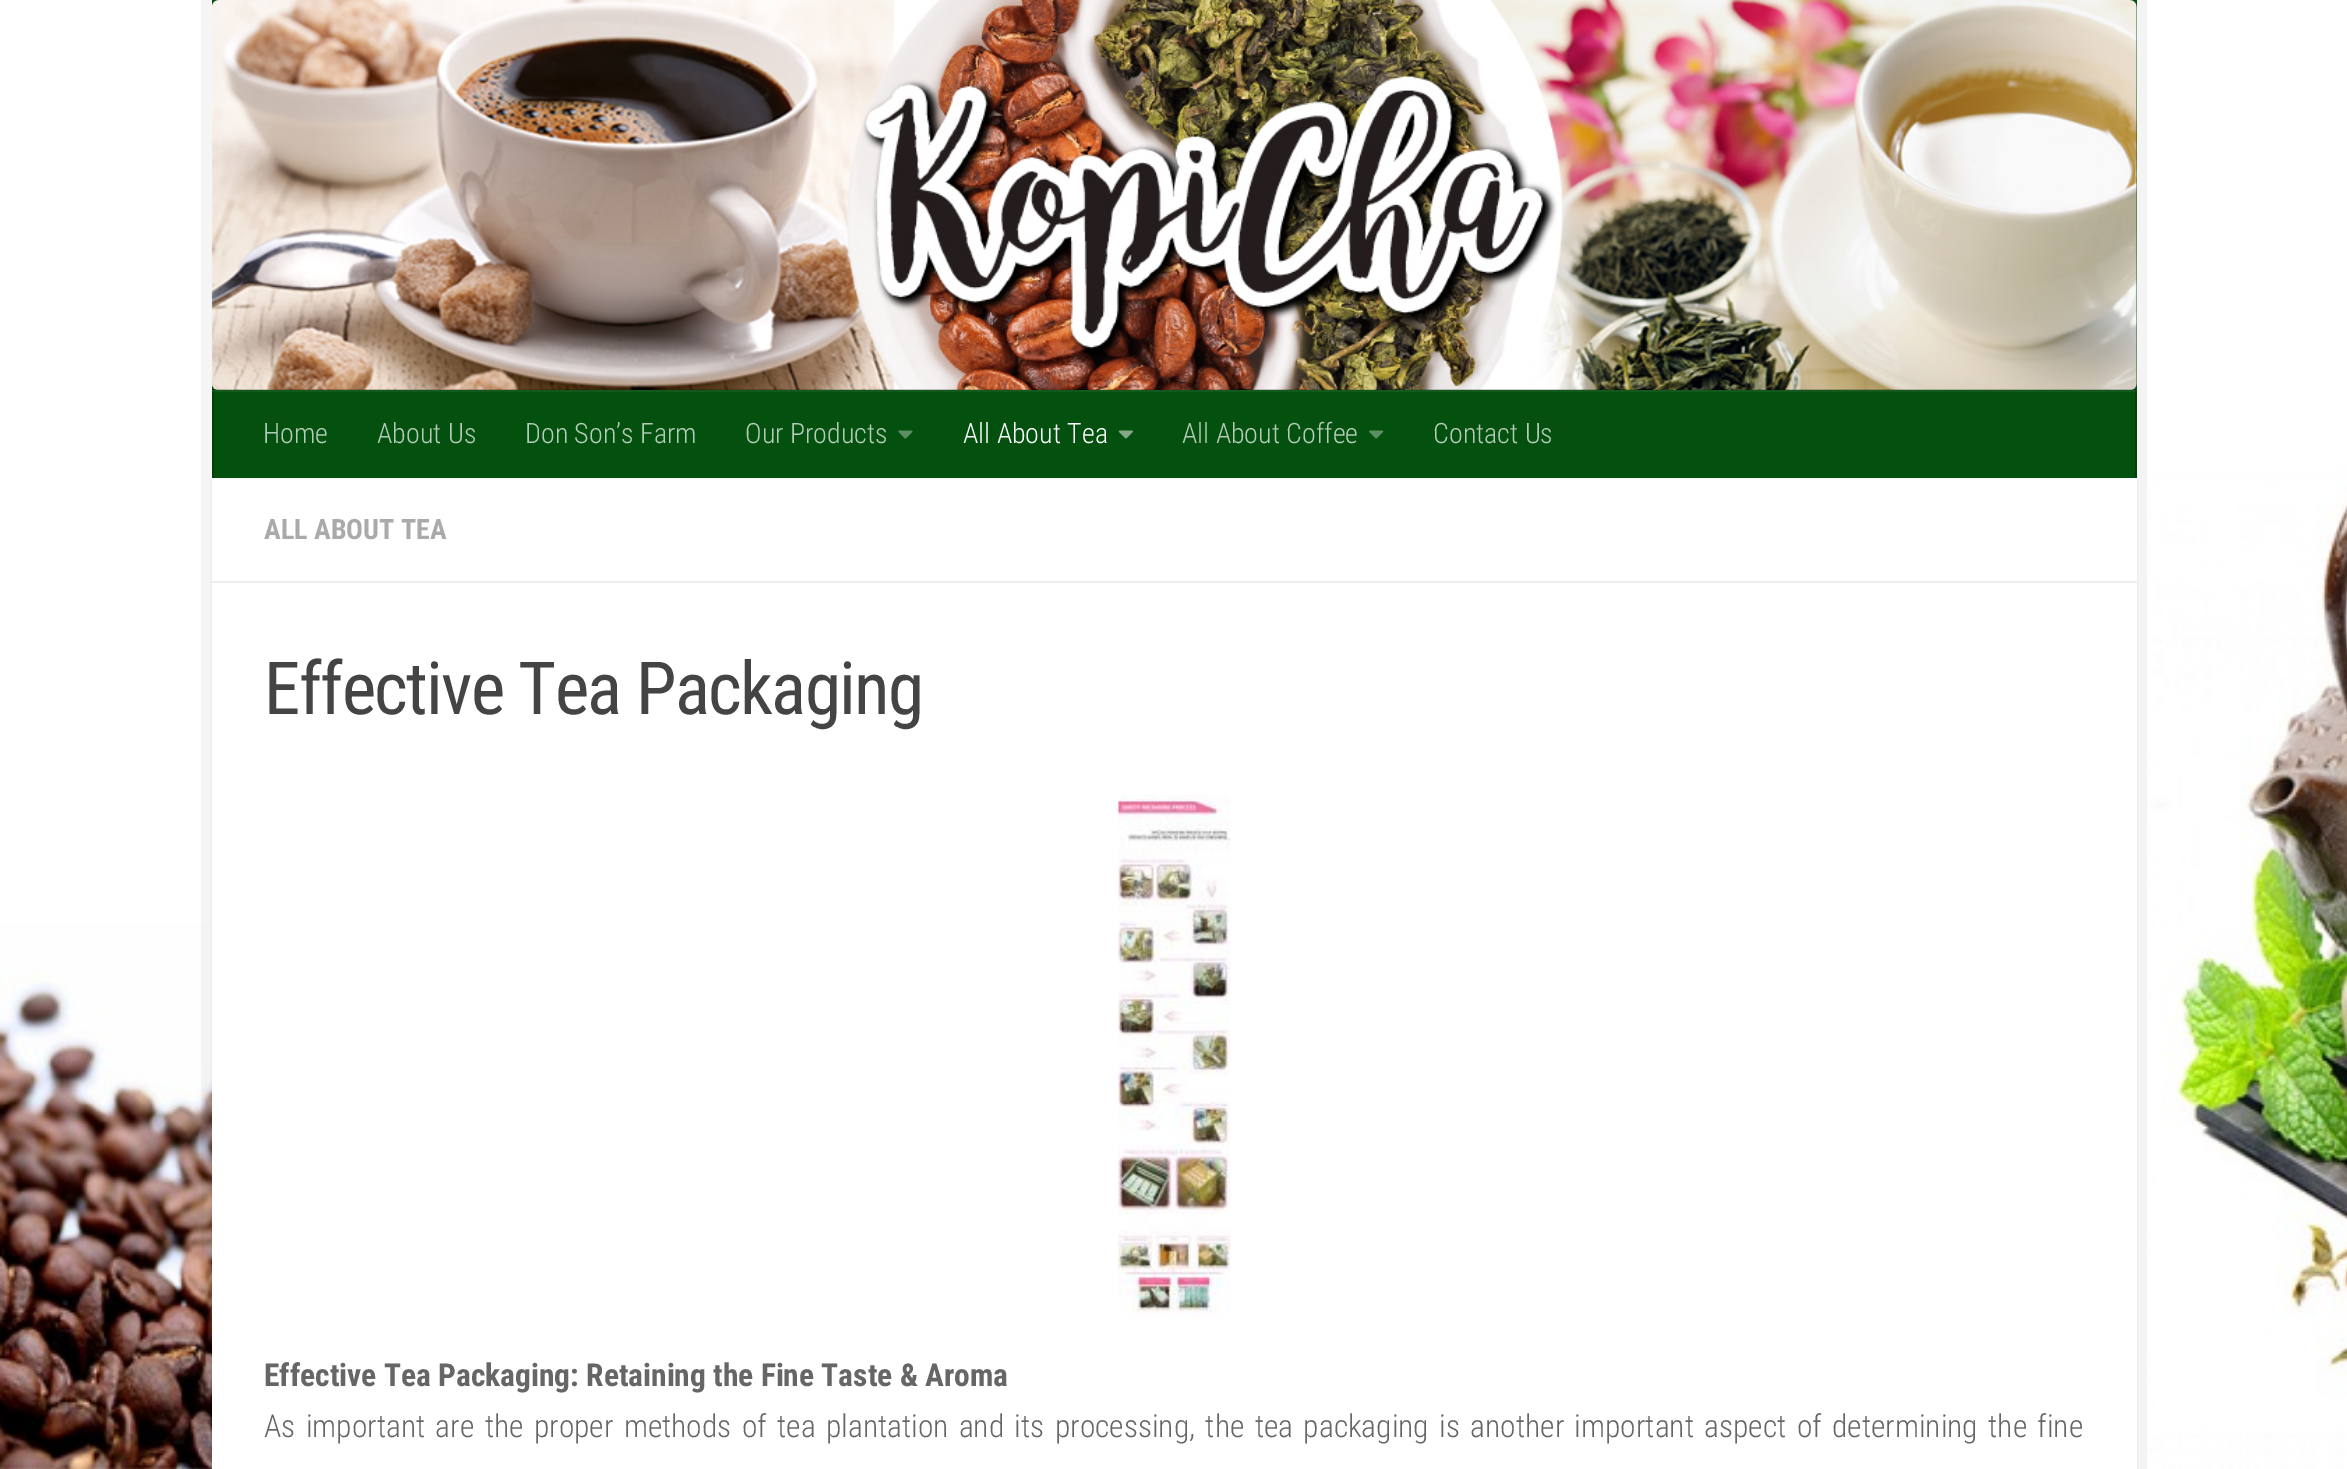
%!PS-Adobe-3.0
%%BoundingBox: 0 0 2347 1469
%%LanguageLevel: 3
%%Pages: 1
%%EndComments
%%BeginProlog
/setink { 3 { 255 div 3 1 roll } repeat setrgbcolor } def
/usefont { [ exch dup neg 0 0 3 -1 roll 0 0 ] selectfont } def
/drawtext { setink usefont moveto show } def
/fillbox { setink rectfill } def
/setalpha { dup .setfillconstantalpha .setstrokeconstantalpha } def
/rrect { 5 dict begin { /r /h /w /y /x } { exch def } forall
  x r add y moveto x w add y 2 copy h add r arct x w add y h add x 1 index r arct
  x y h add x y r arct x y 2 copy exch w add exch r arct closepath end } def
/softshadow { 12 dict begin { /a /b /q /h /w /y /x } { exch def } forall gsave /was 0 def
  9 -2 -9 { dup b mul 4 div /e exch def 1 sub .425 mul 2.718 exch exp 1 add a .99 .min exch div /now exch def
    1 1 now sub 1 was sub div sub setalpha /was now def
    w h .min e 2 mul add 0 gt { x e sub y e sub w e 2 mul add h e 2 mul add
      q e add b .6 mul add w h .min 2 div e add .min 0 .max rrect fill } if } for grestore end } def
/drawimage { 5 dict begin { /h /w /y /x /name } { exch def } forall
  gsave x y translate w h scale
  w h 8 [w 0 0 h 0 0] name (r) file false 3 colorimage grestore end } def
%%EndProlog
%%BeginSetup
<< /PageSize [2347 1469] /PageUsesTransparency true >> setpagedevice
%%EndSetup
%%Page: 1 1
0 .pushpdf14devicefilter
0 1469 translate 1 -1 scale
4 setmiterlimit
0 0 2347 1469 255 255 255 fillbox
(assets/img1.rgb) 0 0 2347 1469 drawimage
0.04 setalpha
201 0 11 1469 0 0 0 fillbox
1 setalpha
2137 0 10 1469 244 244 244 fillbox
212 0 1925 390 4 81 15 fillbox
(assets/img2.rgb) 211 0 1926 390 drawimage
0.2 setalpha
0 0 0 setink
212 389 moveto 212 390 lineto 2137 390 lineto 2137 476 lineto 2137 389 lineto closepath fill
1 setalpha
212 480 1925 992 0 1 0.1 softshadow
214 390 1921 88 4 81 15 fillbox
2135 390 2 88 3 65 12 fillbox
212 390 2 88 3 65 12 fillbox
0.05 setalpha
212 390 1925 2 255 255 255 fillbox
1 setalpha
(Home) 263 443 /RobotoCondensed-Light 28 180 203 183 drawtext
(About Us) 377 443 /RobotoCondensed-Light 28 180 203 183 drawtext
(Don Son’s Farm) 525 443 /RobotoCondensed-Light 28 180 203 183 drawtext
(Our Products) 745 443 /RobotoCondensed-Light 28 180 203 183 drawtext
(assets/img3.rgb) 898 430 15 9 drawimage
(All About Tea) 963 443 /RobotoCondensed-Light 28 255 255 255 drawtext
(assets/img4.rgb) 1118 430 15 9 drawimage
(All About Coffee) 1182 443 /RobotoCondensed-Light 28 180 203 183 drawtext
(assets/img5.rgb) 1369 430 15 9 drawimage
(Contact Us) 1433 443 /RobotoCondensed-Light 28 180 203 183 drawtext
212 478 1925 991 255 255 255 fillbox
212 581 1925 2 238 238 238 fillbox
(ALL ABOUT TEA) 264 539 /RobotoCondensed-Bold 28 170 170 170 drawtext
/RobotoCondensed-Regular 73.25 usefont
68 68 68 setink
264 714 moveto -1.75 0 (Effective Tea Packaging) ashow
(assets/img6.rgb) 1118 795 112 524 drawimage
(Effective Tea Packaging: Retaining the Fine Taste & Aroma) 264 1386 /RobotoCondensed-Bold 31.5 102 102 102 drawtext
/RobotoCondensed-Light 31.5 usefont
264 1437 moveto 3.3 0 32 (As important are the proper methods of tea plantation and its processing, the tea packaging is another important aspect of determining the fine) widthshow
.poppdf14devicefilter showpage
%%EOF
